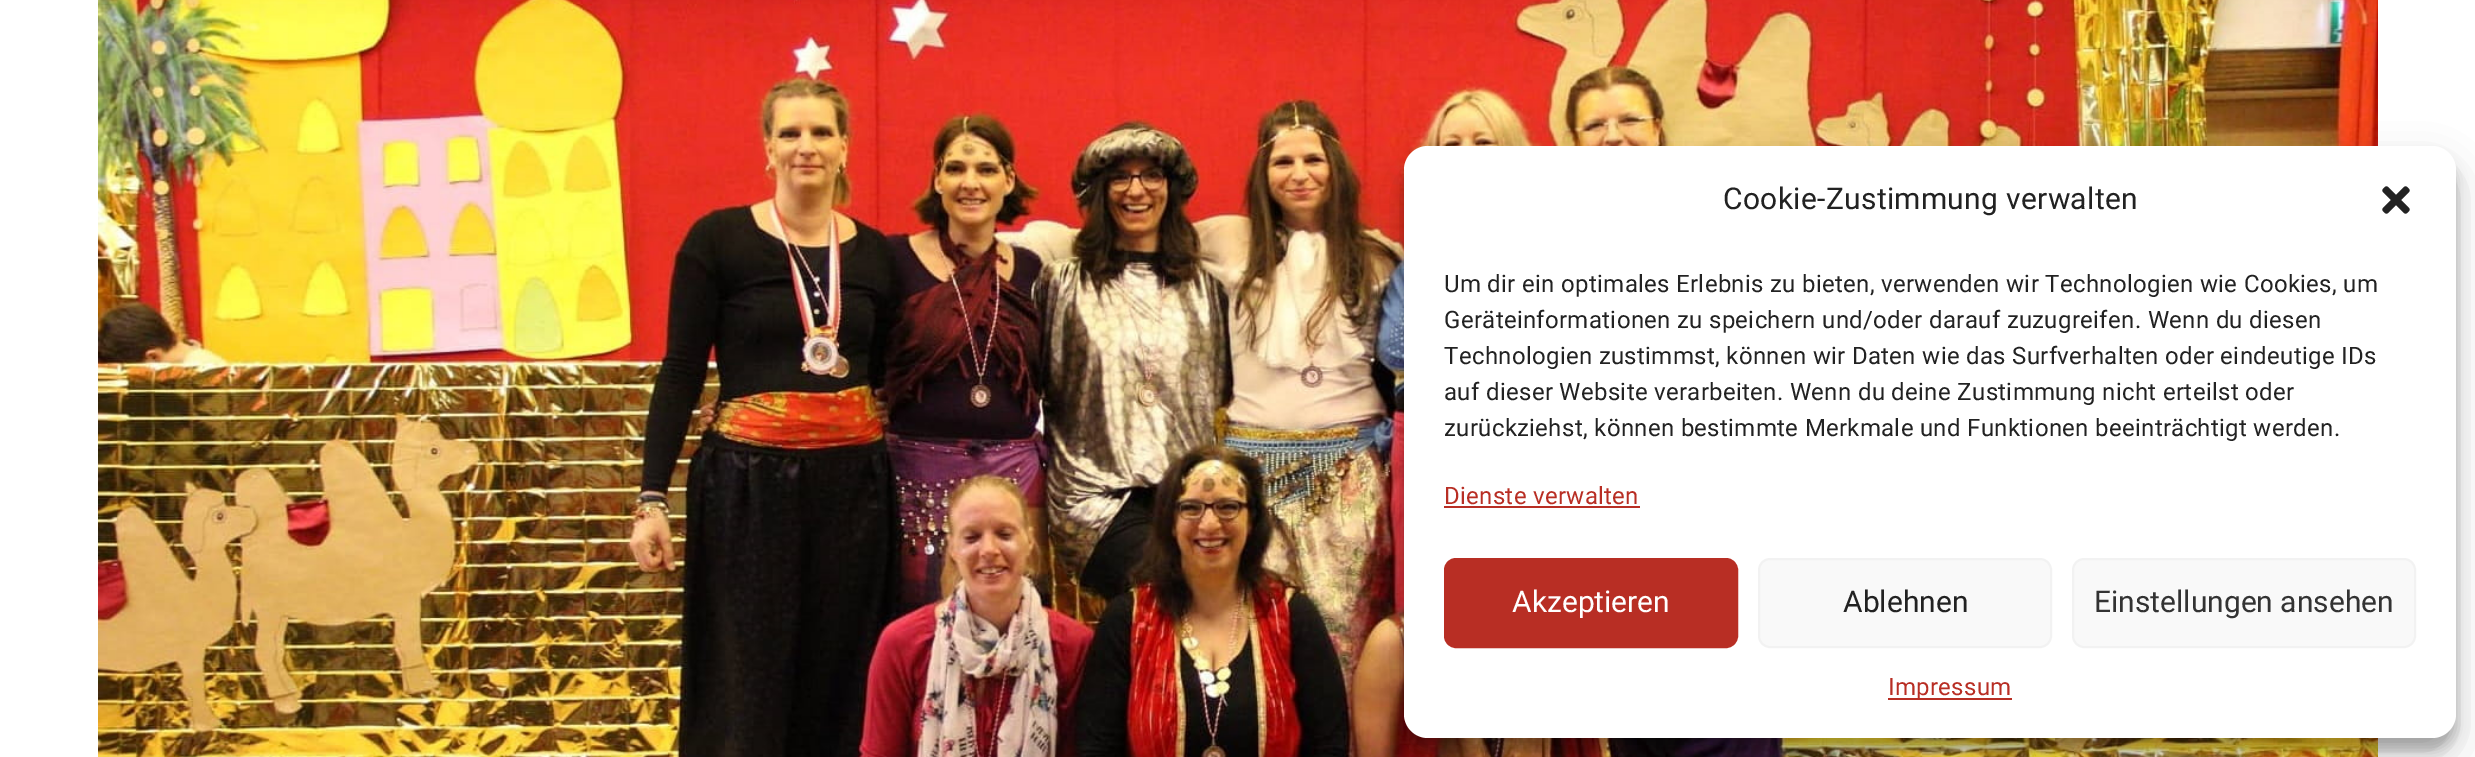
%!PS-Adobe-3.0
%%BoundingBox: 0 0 2475 757
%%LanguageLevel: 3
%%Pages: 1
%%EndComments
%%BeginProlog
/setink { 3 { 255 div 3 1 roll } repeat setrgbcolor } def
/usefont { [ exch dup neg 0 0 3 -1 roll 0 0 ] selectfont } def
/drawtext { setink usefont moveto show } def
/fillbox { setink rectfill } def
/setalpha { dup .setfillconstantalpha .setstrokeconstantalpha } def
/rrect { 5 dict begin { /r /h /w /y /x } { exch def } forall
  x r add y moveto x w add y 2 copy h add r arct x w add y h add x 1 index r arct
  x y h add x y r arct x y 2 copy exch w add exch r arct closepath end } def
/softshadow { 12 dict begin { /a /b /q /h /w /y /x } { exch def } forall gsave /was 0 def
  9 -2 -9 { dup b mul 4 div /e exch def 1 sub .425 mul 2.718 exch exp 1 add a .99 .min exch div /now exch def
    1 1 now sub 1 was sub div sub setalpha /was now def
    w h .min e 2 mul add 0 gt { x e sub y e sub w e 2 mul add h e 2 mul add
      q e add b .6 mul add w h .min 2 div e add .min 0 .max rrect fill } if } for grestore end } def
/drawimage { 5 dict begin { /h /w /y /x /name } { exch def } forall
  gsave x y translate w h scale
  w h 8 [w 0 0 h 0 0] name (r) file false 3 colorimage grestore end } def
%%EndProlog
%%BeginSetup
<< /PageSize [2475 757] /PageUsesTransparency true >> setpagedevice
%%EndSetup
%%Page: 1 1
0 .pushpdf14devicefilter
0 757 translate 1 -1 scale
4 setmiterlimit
0 0 2475 757 255 255 255 fillbox
(assets/img1.rgb) 98 0 2280 757 drawimage
0 0 0 setink
1404 158 1052 592 24 6 0.23 softshadow
1404 166 1052 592 24 20 0.19 softshadow
255 255 255 setink
1404 146 1052 592 24 rrect fill
/Roboto-Regular 30 usefont
34 34 34 setink
1723 209 moveto 0.32 0 (Cookie-Zustimmung verwalten) ashow
(assets/img2.rgb) 2382 186 28 28 drawimage
/Roboto-Regular 24 usefont
1444 292 moveto 0.32 0 (Um dir ein optimales Erlebnis zu bieten, verwenden wir Technologien wie Cookies, um) ashow
1444 328 moveto 0.32 0 (Geräteinformationen zu speichern und/oder darauf zuzugreifen. Wenn du diesen) ashow
1444 364 moveto 0.32 0 (Technologien zustimmst, können wir Daten wie das Surfverhalten oder eindeutige IDs) ashow
1444 400 moveto 0.32 0 (auf dieser Website verarbeiten. Wenn du deine Zustimmung nicht erteilst oder) ashow
1444 436 moveto 0.32 0 (zurückziehst, können bestimmte Merkmale und Funktionen beeinträchtigt werden.) ashow
184 46 36 setink
1444 504 moveto 0.32 0 (Dienste verwalten) ashow
1444 506 196 2 184 46 36 fillbox
1445 559 292 88 11 rrect gsave fill grestore
2 setlinewidth
stroke
(Akzeptieren) 1512 612 /Roboto-Regular 30 255 255 255 drawtext
249 249 249 setink
1759 559 292 88 11 rrect gsave fill grestore
242 242 242 setink
stroke
(Ablehnen) 1843 612 /Roboto-Regular 30 34 34 34 drawtext
249 249 249 setink
2073 559 342 88 11 rrect gsave fill grestore
242 242 242 setink
stroke
(Einstellungen ansehen) 2094 612 /Roboto-Regular 30 51 51 51 drawtext
1888 698 124 2 184 46 36 fillbox
/Roboto-Regular 24 usefont
1888 695 moveto 0.32 0 (Impressum) ashow
.poppdf14devicefilter showpage
%%EOF
